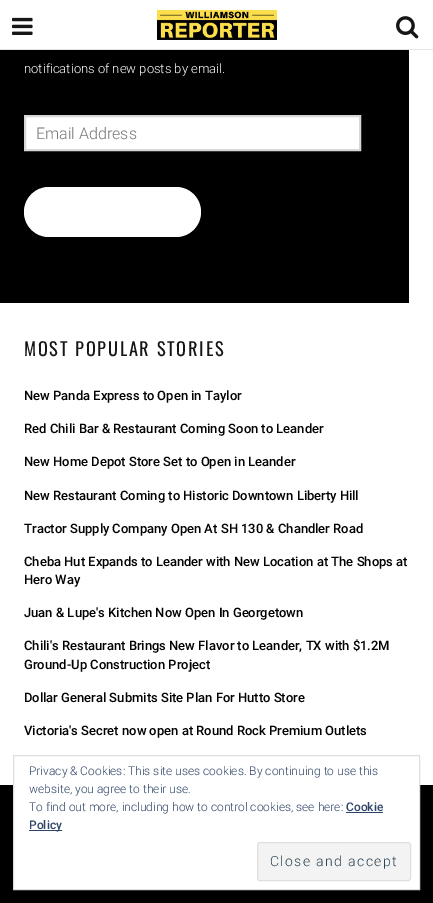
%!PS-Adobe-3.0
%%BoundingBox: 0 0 433 903
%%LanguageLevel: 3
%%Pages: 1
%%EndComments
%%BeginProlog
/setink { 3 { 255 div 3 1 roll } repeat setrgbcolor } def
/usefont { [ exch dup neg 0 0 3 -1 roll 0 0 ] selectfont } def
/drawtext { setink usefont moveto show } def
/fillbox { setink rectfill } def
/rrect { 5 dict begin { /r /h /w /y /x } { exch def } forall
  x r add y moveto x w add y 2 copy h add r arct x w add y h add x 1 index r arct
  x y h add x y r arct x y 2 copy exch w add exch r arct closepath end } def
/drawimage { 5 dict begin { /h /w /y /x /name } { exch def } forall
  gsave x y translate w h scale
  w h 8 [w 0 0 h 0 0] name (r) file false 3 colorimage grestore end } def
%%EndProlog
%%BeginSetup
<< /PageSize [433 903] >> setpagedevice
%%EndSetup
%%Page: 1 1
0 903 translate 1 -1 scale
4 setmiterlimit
0 0 433 903 255 255 255 fillbox
0 49 433 1 226 227 227 fillbox
(assets/img1.rgb) 12 17 21 18 drawimage
(assets/img2.rgb) 157 10 120 30 drawimage
(assets/img3.rgb) 396 16 23 23 drawimage
0 50 409 253 0 0 0 fillbox
(notifications of new posts by email.) 24 73 /Roboto-Light 13 255 255 255 drawtext
25 116 moveto 360 116 lineto 360 150 lineto 25 150 lineto closepath gsave fill grestore
215 215 215 setink
2 setlinewidth
stroke
(Email Address) 36 139 /Roboto-Light 16 117 117 117 drawtext
255 255 255 setink
24 187 177 50 25 rrect fill
/Oswald-Regular 18.25 usefont
23 22 23 setink
24 356 moveto 1.8 0 (MOST POPULAR STORIES) ashow
(New Panda Express to Open in Taylor) 24 400 /Roboto-Medium 13 0 0 0 drawtext
(Red Chili Bar & Restaurant Coming Soon to Leander) 24 433 /Roboto-Medium 13 0 0 0 drawtext
(New Home Depot Store Set to Open in Leander) 24 466 /Roboto-Medium 13 0 0 0 drawtext
(New Restaurant Coming to Historic Downtown Liberty Hill) 24 500 /Roboto-Medium 13 0 0 0 drawtext
(Tractor Supply Company Open At SH 130 & Chandler Road) 24 533 /Roboto-Medium 13 0 0 0 drawtext
(Cheba Hut Expands to Leander with New Location at The Shops at) 24 566 /Roboto-Medium 13 0 0 0 drawtext
(Hero Way) 24 584 /Roboto-Medium 13 0 0 0 drawtext
(Juan & Lupe's Kitchen Now Open In Georgetown) 24 617 /Roboto-Medium 13 0 0 0 drawtext
(Chili's Restaurant Brings New Flavor to Leander, TX with $1.2M) 24 650 /Roboto-Medium 13 0 0 0 drawtext
(Ground-Up Construction Project) 24 669 /Roboto-Medium 13 0 0 0 drawtext
(Dollar General Submits Site Plan For Hutto Store) 24 702 /Roboto-Medium 13 0 0 0 drawtext
(Victoria's Secret now open at Round Rock Premium Outlets) 24 735 /Roboto-Medium 13 0 0 0 drawtext
0 785 433 118 0 0 0 fillbox
14 785 405 104 255 255 255 fillbox
222 222 222 setink
1 setlinewidth
13.5 755.5 406 134 rectstroke
(Privacy & Cookies: This site uses cookies. By continuing to use this) 29 775 /Roboto-Light 12 46 68 103 drawtext
(website, you agree to their use.) 29 793 /Roboto-Light 12 46 68 103 drawtext
(To find out more, including how to control cookies, see here:) 29 811 /Roboto-Light 12 46 68 103 drawtext
(Cookie) 346 811 /Roboto-Medium 12 46 68 103 drawtext
346 812 37 1 46 68 103 fillbox
29 830 33 1 46 68 103 fillbox
(Policy) 29 829 /Roboto-Medium 12 46 68 103 drawtext
243 243 243 setink
257.5 842.5 153 38 2.5 rrect gsave fill grestore
222 222 222 setink
stroke
/Roboto-Light 14 usefont
46 68 83 setink
270 866 moveto 1.4 0 (Close and accept) ashow
showpage
%%EOF
